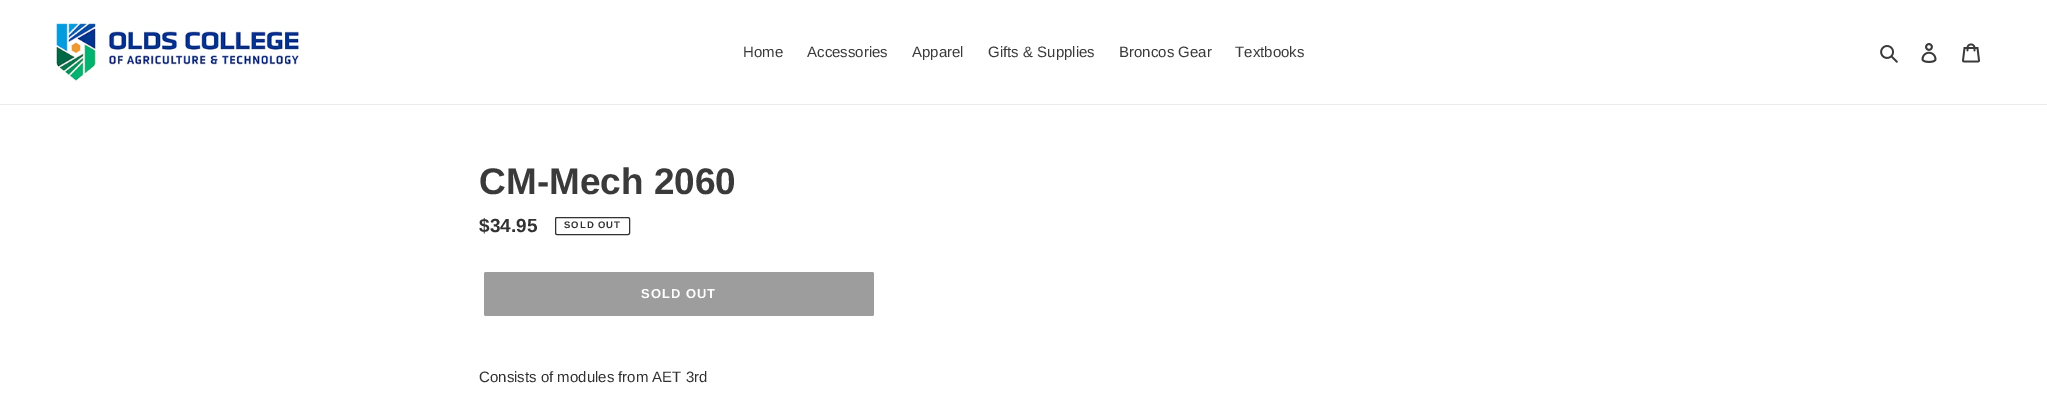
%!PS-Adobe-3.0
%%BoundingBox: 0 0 2047 417
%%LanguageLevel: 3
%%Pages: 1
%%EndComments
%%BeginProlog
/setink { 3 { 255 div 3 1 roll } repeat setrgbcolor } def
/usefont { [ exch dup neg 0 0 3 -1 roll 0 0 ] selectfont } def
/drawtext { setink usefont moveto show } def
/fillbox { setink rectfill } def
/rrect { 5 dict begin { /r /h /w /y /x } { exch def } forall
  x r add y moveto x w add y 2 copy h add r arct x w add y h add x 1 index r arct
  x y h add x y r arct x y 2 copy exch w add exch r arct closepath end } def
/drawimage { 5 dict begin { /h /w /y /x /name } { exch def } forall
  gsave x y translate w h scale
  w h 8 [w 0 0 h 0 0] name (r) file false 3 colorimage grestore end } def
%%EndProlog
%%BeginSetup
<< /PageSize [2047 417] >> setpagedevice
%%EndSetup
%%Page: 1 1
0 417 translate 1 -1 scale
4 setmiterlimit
0 0 2047 417 255 255 255 fillbox
0 104 2047 1 235 235 235 fillbox
(assets/img1.rgb) 55 21 245 61 drawimage
(Home) 743 57 /LiberationSans-Regular 15 58 58 58 drawtext
(Accessories) 807 57 /LiberationSans-Regular 15 58 58 58 drawtext
(Apparel) 912 57 /LiberationSans-Regular 15 58 58 58 drawtext
(Gifts & Supplies) 988 57 /LiberationSans-Regular 15 58 58 58 drawtext
(Broncos Gear) 1119 57 /LiberationSans-Regular 15 58 58 58 drawtext
(Textbooks) 1235 57 /LiberationSans-Regular 15 58 58 58 drawtext
(assets/img2.rgb) 1880 45 18 18 drawimage
(assets/img3.rgb) 1921 43 16 20 drawimage
(assets/img4.rgb) 1962 43 18 20 drawimage
(CM-Mech 2060) 479 194 /LiberationSans-Bold 37 58 58 58 drawtext
($34.95) 479 232 /LiberationSans-Bold 19 51 50 50 drawtext
555.5 217.5 74 17 1.5 rrect stroke
/LiberationSans-Bold 9.5 usefont
564 228 moveto 1 0 (SOLD OUT) ashow
157 157 157 setink
484 272 390 44 2 rrect fill
/LiberationSans-Bold 13 usefont
255 255 255 setink
641 298 moveto 1 0 (SOLD OUT) ashow
(Consists of modules from AET 3rd) 479 382 /LiberationSans-Regular 15 51 50 50 drawtext
showpage
%%EOF
